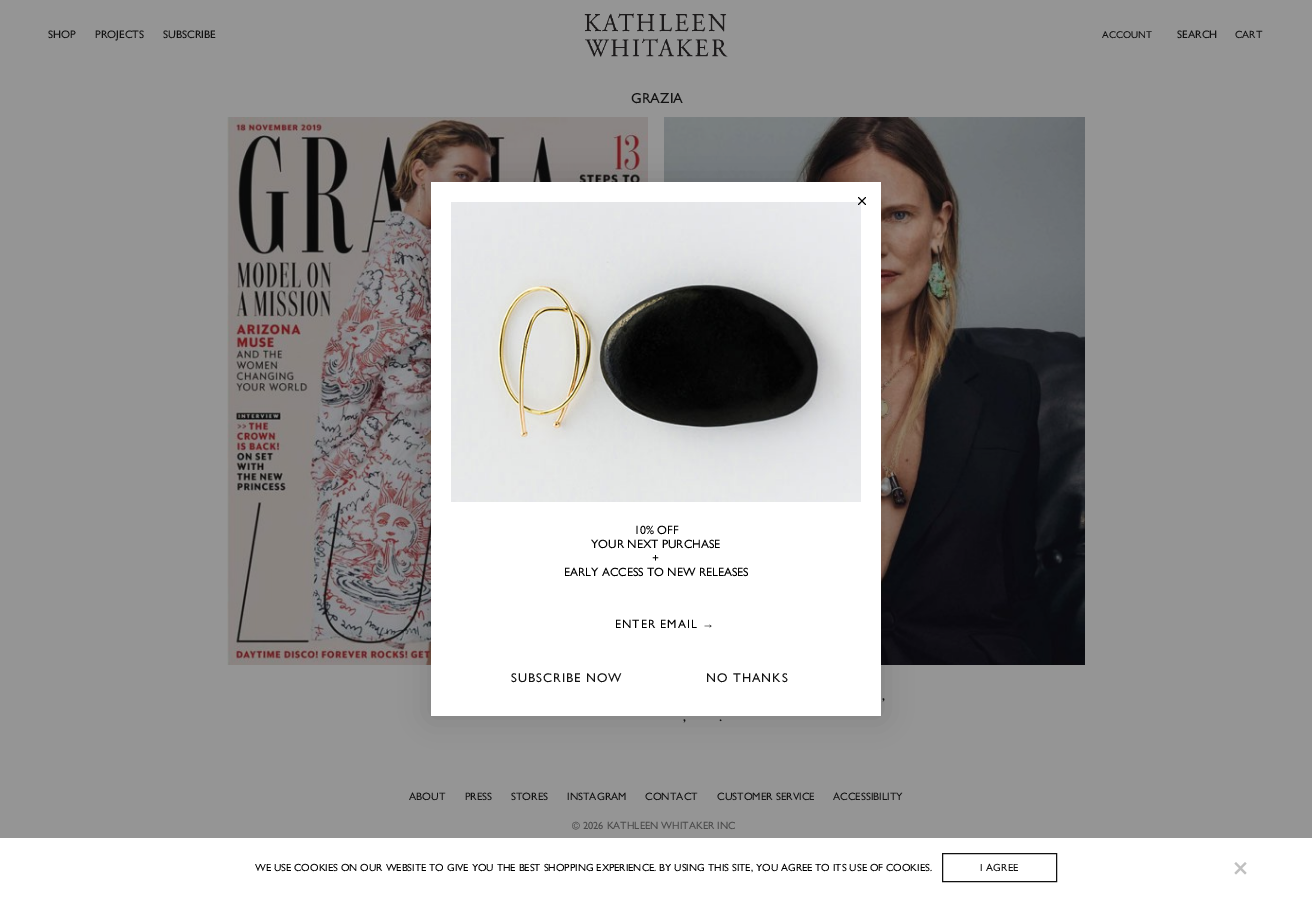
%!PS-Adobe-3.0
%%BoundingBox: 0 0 1312 898
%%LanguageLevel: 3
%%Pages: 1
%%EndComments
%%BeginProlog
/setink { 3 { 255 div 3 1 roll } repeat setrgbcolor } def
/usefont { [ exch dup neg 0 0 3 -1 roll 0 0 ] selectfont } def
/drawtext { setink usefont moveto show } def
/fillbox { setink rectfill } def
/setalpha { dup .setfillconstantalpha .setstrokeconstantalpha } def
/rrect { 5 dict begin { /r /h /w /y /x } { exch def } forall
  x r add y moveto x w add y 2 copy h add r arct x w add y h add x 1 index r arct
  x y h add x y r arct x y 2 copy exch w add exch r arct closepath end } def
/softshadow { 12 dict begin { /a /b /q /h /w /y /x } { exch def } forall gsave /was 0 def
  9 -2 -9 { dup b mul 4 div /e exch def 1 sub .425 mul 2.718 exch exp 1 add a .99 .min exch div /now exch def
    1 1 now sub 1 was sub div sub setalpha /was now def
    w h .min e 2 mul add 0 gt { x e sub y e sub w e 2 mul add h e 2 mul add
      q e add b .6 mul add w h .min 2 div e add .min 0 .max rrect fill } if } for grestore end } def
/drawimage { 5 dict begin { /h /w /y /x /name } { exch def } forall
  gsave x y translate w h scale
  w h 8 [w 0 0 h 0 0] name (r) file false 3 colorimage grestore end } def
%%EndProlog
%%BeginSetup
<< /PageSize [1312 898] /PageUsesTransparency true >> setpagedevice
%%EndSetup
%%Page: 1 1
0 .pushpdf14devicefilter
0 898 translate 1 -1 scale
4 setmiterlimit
0 0 1312 898 149 149 149 fillbox
(SHOP) 48 38 /GillSans-Regular 11 18 18 18 drawtext
(PROJECTS) 95 38 /GillSans-Regular 11 18 18 18 drawtext
(SUBSCRIBE) 163 38 /GillSans-Regular 11 18 18 18 drawtext
(assets/img1.rgb) 584 13 144 44 drawimage
(ACCOUNT) 1102 38 /GillSans-Regular 10 18 18 18 drawtext
(SEARCH) 1177 38 /GillSans-Regular 11 18 18 18 drawtext
(CART) 1235 38 /GillSans-Regular 10.5 18 18 18 drawtext
(GRAZIA) 631 103 /GillSans-Regular 14.5 18 18 18 drawtext
(assets/img2.rgb) 227 117 421 548 drawimage
(assets/img3.rgb) 664 117 421 548 drawimage
(,) 882 700 /GillSans-Regular 14.5 18 18 18 drawtext
(,) 683 721 /GillSans-Regular 14.5 18 18 18 drawtext
(.) 719 721 /GillSans-Regular 14.5 18 18 18 drawtext
(ABOUT) 409 800 /GillSans-Regular 10.75 18 18 18 drawtext
(PRESS) 465 800 /GillSans-Regular 10.75 18 18 18 drawtext
(STORES) 511 800 /GillSans-Regular 10.75 18 18 18 drawtext
(INSTAGRAM) 567 800 /GillSans-Regular 10.75 18 18 18 drawtext
(CONTACT) 645 800 /GillSans-Regular 10.75 18 18 18 drawtext
(CUSTOMER SERVICE) 717 800 /GillSans-Regular 10.75 18 18 18 drawtext
(ACCESSIBILITY) 833 800 /GillSans-Regular 10.75 18 18 18 drawtext
(© 2026 KATHLEEN WHITAKER INC) 572 829 /GillSans-Regular 10.5 74 74 74 drawtext
0 0 0 setink
431 182 450 534 0 15 0.15 softshadow
431 182 450 534 255 255 255 fillbox
(assets/img4.rgb) 451 202 410 300 drawimage
0 0 0 setink
0.9 setlinewidth
1 setlinecap
1 setlinejoin
858.5 197.5 moveto 865.5 204.5 lineto 858.5 204.5 moveto 865.5 197.5 lineto closepath stroke
(10% OFF) 634 534 /GillSans-Regular 12 0 0 0 drawtext
(YOUR NEXT PURCHASE) 591 548 /GillSans-Regular 12 0 0 0 drawtext
(+) 652 562 /GillSans-Regular 12 0 0 0 drawtext
(EARLY ACCESS TO NEW RELEASES) 564 576 /GillSans-Regular 12 0 0 0 drawtext
615 628 moveto 1 0 (ENTER EMAIL) ashow
/LiberationSans-Regular 12 usefont
702 628 moveto 1 0 (→) ashow
/GillSans-Regular 12.75 usefont
18 18 18 setink
511 682 moveto 1 0 (SUBSCRIBE NOW) ashow
706 682 moveto 1 0 (NO THANKS) ashow
0 838 1312 60 255 255 255 fillbox
(WE USE COOKIES ON OUR WEBSITE TO GIVE YOU THE BEST SHOPPING EXPERIENCE. BY USING THIS SITE, YOU AGREE TO ITS USE OF COOKIES.) 255 871 /GillSans-Regular 10.4 0 0 0 drawtext
17 17 17 setink
1 setlinewidth
0 setlinecap
0 setlinejoin
942.5 853.5 114 28 rectstroke
18 18 18 setink
980 871 moveto 0.25 0 (I AGREE) ashow
192 192 192 setink
1245 862 moveto 1246.5 863.5 lineto 1236 874.5 lineto 1234.5 873 lineto closepath fill
1234.5 863.5 moveto 1236 862 lineto 1246.5 873 lineto 1245 874.5 lineto closepath fill
.poppdf14devicefilter showpage
%%EOF
